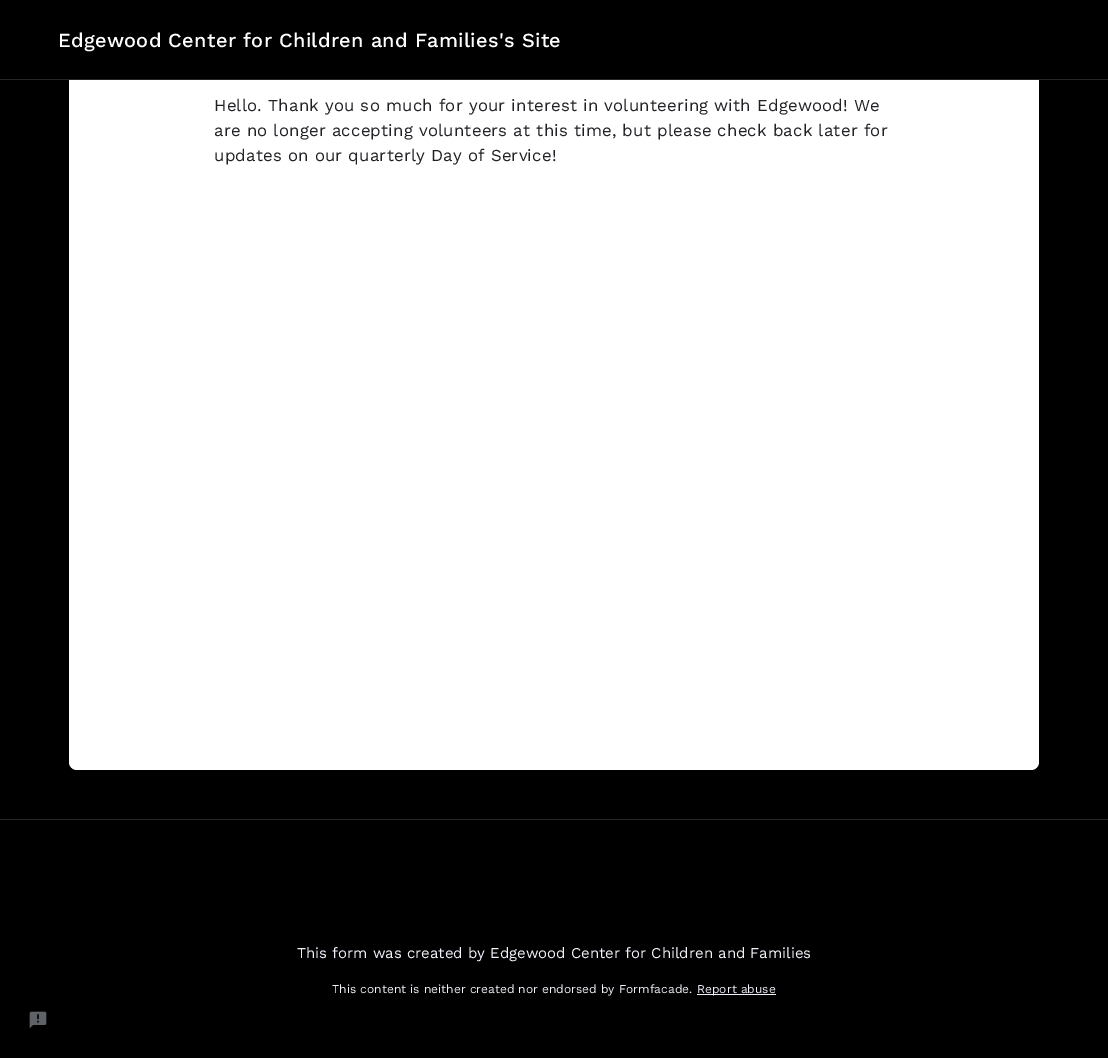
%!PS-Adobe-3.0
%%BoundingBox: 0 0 1108 1058
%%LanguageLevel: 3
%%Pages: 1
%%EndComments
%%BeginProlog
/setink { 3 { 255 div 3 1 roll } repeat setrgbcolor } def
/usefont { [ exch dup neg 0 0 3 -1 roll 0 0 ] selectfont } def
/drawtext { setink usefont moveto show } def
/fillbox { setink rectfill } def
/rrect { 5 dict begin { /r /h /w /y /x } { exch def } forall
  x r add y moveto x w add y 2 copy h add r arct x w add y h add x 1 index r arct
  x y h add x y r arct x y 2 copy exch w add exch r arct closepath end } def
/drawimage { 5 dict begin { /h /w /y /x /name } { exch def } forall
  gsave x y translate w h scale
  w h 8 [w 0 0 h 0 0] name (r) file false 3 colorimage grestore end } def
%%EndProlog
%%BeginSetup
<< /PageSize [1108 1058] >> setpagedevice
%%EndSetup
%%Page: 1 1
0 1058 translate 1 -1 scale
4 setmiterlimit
0 0 1108 1058 0 0 0 fillbox
255 255 255 setink
69 24 970 746 8 rrect fill
69 24 970 55 0 0 0 fillbox
0 79 1108 1 38 38 38 fillbox
/WorkSans-Medium 20 usefont
255 255 255 setink
58 47 moveto 0.3 0 (Edgewood Center for Children and Families's Site) ashow
/WorkSans-Regular 16.8 usefont
32 33 36 setink
214 111 moveto 0.2 0 (Hello. Thank you so much for your interest in volunteering with Edgewood! We) ashow
214 136 moveto 0.2 0 (are no longer accepting volunteers at this time, but please check back later for) ashow
214 161 moveto 0.2 0 (updates on our quarterly Day of Service!) ashow
0 819 1108 1 38 38 38 fillbox
(This form was created by Edgewood Center for Children and Families) 297 958 /WorkSans-Regular 15 240 241 250 drawtext
(This content is neither created nor endorsed by Formfacade.) 332 993 /WorkSans-Regular 12 240 241 250 drawtext
697 994 79 1 240 241 250 fillbox
(Report abuse) 697 993 /WorkSans-Regular 12 240 241 250 drawtext
(assets/img1.rgb) 29 1011 18 18 drawimage
showpage
%%EOF
